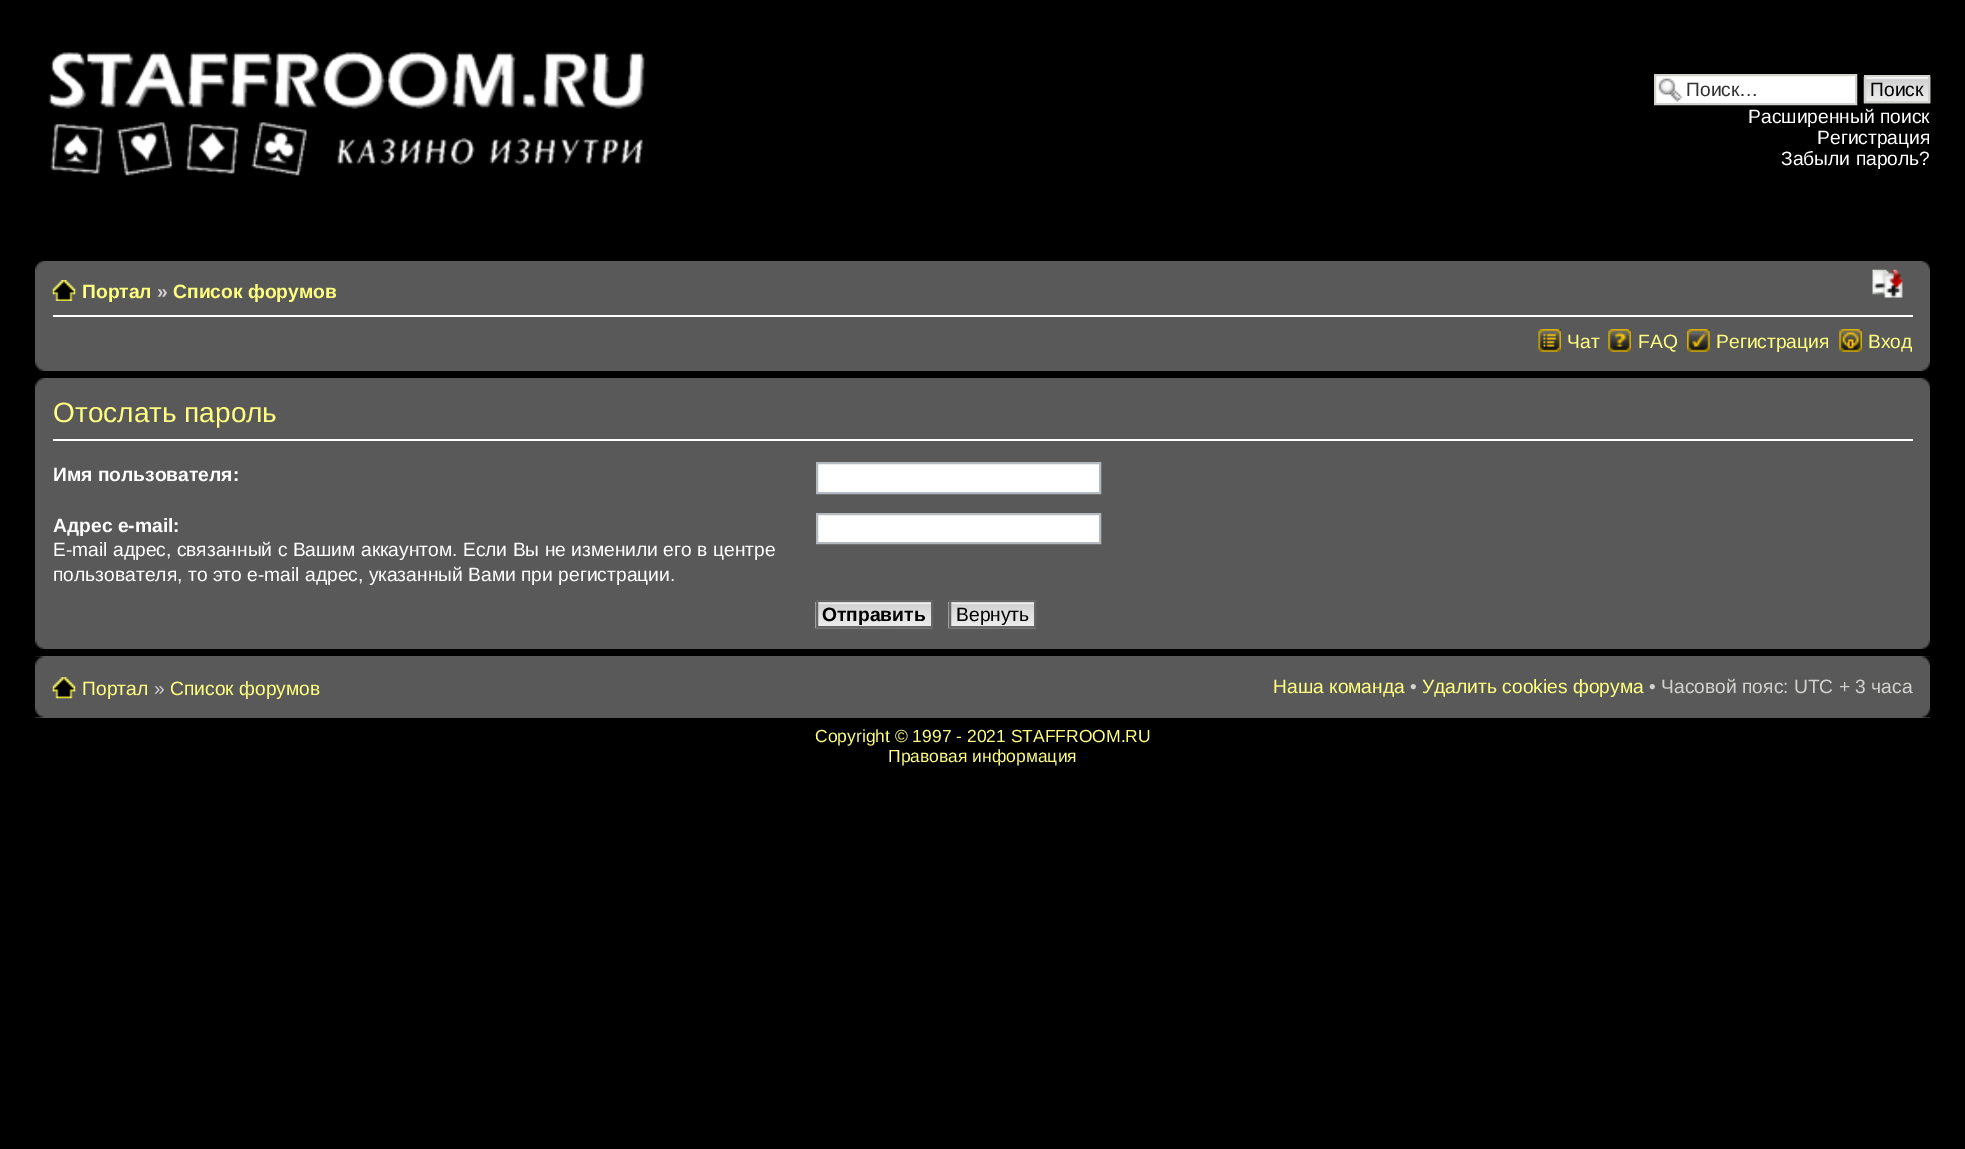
%!PS-Adobe-3.0
%%BoundingBox: 0 0 1965 1149
%%LanguageLevel: 3
%%Pages: 1
%%EndComments
%%BeginProlog
/setink { 3 { 255 div 3 1 roll } repeat setrgbcolor } def
/usefont { [ exch dup neg 0 0 3 -1 roll 0 0 ] selectfont } def
/drawtext { setink usefont moveto show } def
/fillbox { setink rectfill } def
/drawimage { 5 dict begin { /h /w /y /x /name } { exch def } forall
  gsave x y translate w h scale
  w h 8 [w 0 0 h 0 0] name (r) file false 3 colorimage grestore end } def
%%EndProlog
%%BeginSetup
<< /PageSize [1965 1149] >> setpagedevice
%%EndSetup
%%Page: 1 1
0 1149 translate 1 -1 scale
4 setmiterlimit
0 0 1965 1149 0 0 0 fillbox
(assets/img1.rgb) 48 52 597 124 drawimage
1656 76 199 27 255 255 255 fillbox
(assets/img2.rgb) 1658 78 25 24 drawimage
211 210 207 setink
2 setlinewidth
1655 75 201 29 rectstroke
(Поиск…) 1686 96 /LiberationSans-Regular 19.25 51 51 51 drawtext
(assets/img3.rgb) 1863 77 68 27 drawimage
211 210 207 setink
1865 76 64 26 rectstroke
(Поиск) 1870 96 /LiberationSans-Regular 19.25 0 0 0 drawtext
(Расширенный поиск) 1748 123 /LiberationSans-Regular 19.25 255 255 255 drawtext
(Регистрация) 1817 144 /LiberationSans-Regular 19.25 255 255 255 drawtext
(Забыли пароль?) 1781 165 /LiberationSans-Regular 19.25 255 255 255 drawtext
35 261 1895 110 89 89 89 fillbox
(assets/img4.rgb) 35 261 9 9 drawimage
(assets/img5.rgb) 1921 261 9 9 drawimage
53 315 1860 2 255 255 255 fillbox
(assets/img6.rgb) 52 280 24 21 drawimage
(Портал) 82 298 /LiberationSans-Bold 19.25 255 255 128 drawtext
(») 157 298 /LiberationSans-Bold 19.25 211 210 207 drawtext
(Список форумов) 173 298 /LiberationSans-Bold 19.25 255 255 128 drawtext
(assets/img7.rgb) 1872 269 31 29 drawimage
(assets/img8.rgb) 1538 329 23 23 drawimage
(Чат) 1567 348 /LiberationSans-Regular 19.25 255 255 128 drawtext
(assets/img9.rgb) 1608 329 23 23 drawimage
(FAQ) 1638 348 /LiberationSans-Regular 19.25 255 255 128 drawtext
(assets/img10.rgb) 1687 329 23 23 drawimage
(Регистрация) 1716 348 /LiberationSans-Regular 19.25 255 255 128 drawtext
(assets/img11.rgb) 1839 329 23 23 drawimage
(Вход) 1868 348 /LiberationSans-Regular 19.25 255 255 128 drawtext
(assets/img12.rgb) 35 362 10 9 drawimage
(assets/img13.rgb) 1921 362 9 9 drawimage
35 378 1895 271 89 89 89 fillbox
(assets/img14.rgb) 35 378 9 9 drawimage
(assets/img15.rgb) 1921 378 9 9 drawimage
53 439 1860 2 255 255 255 fillbox
(Отослать пароль) 53 422 /LiberationSans-Regular 28 255 255 128 drawtext
(Имя пользователя:) 53 481 /LiberationSans-Bold 19.25 255 255 255 drawtext
817 463 moveto 1100 463 lineto 1100 493 lineto 817 493 lineto closepath gsave fill grestore
180 186 192 setink
stroke
(Адрес e-mail:) 53 532 /LiberationSans-Bold 19.25 255 255 255 drawtext
(E-mail адрес, связанный с Вашим аккаунтом. Если Вы не изменили его в центре) 53 556 /LiberationSans-Regular 19.25 255 255 255 drawtext
(пользователя, то это e-mail адрес, указанный Вами при регистрации.) 53 581 /LiberationSans-Regular 19.25 255 255 255 drawtext
817 514 moveto 1100 514 lineto 1100 543 lineto 817 543 lineto closepath gsave fill grestore
180 186 192 setink
stroke
(assets/img16.rgb) 815 602 118 27 drawimage
102 102 102 setink
817 601 115 26 rectstroke
(Отправить) 822 621 /LiberationSans-Bold 19.25 0 0 0 drawtext
(assets/img17.rgb) 948 602 88 27 drawimage
102 102 102 setink
950 601 85 26 rectstroke
(Вернуть) 956 621 /LiberationSans-Regular 19.25 0 0 0 drawtext
(assets/img18.rgb) 35 640 10 9 drawimage
(assets/img19.rgb) 1921 640 9 9 drawimage
35 656 1895 62 89 89 89 fillbox
(assets/img20.rgb) 35 656 9 9 drawimage
(assets/img21.rgb) 1921 656 9 9 drawimage
(assets/img22.rgb) 52 677 24 22 drawimage
(Портал) 82 695 /LiberationSans-Regular 19.25 255 255 128 drawtext
(») 154 695 /LiberationSans-Regular 19.25 211 210 207 drawtext
(Список форумов) 170 695 /LiberationSans-Regular 19.25 255 255 128 drawtext
(Наша команда) 1273 693 /LiberationSans-Regular 19.25 255 255 128 drawtext
(•) 1410 693 /LiberationSans-Regular 19.25 211 210 207 drawtext
(Удалить cookies форума) 1422 693 /LiberationSans-Regular 19.25 255 255 128 drawtext
(• Часовой пояс: UTC + 3 часа) 1649 693 /LiberationSans-Regular 19.25 211 210 207 drawtext
(assets/img23.rgb) 35 708 9 10 drawimage
(assets/img24.rgb) 1921 708 9 10 drawimage
(Copyright © 1997 - 2021 STAFFROOM.RU) 815 742 /LiberationSans-Regular 17.5 255 255 128 drawtext
(Правовая информация) 888 762 /LiberationSans-Regular 17.5 255 255 128 drawtext
showpage
%%EOF
